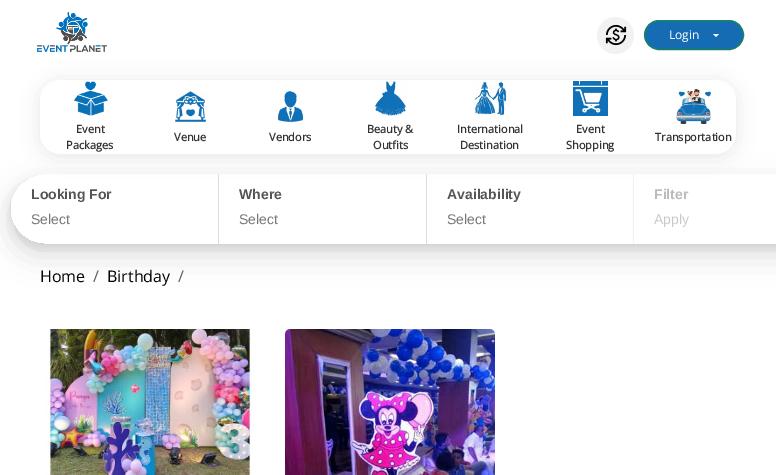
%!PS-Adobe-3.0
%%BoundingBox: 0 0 776 475
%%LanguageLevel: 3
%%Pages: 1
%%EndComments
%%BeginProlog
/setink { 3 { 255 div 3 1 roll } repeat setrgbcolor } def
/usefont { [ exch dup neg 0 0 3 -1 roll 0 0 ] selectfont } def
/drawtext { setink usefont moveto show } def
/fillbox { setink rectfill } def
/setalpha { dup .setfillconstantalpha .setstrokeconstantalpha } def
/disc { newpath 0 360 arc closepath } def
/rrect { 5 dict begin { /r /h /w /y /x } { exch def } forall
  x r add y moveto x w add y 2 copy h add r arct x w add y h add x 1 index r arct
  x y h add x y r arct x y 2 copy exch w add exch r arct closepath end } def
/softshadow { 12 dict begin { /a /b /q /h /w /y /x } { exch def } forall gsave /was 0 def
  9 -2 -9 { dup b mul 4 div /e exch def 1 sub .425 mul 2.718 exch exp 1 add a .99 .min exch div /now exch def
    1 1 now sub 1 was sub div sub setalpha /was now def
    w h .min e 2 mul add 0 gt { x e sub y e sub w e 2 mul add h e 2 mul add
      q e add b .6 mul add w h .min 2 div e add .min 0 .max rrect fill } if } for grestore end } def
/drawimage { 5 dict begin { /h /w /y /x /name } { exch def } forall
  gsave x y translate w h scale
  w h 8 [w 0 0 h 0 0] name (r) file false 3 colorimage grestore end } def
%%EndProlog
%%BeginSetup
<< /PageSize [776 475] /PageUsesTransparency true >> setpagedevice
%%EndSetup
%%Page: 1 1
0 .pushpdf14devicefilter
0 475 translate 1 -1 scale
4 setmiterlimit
0 0 776 475 255 255 255 fillbox
(assets/img1.rgb) 37 12 70 40 drawimage
242 242 242 setink
615.5 35.5 18.5 disc fill
(assets/img2.rgb) 605 24 22 22 drawimage
21 108 179 setink
644.5 20.5 99 29 14.5 rrect gsave fill grestore
25 135 84 setink
stroke
(Login) 669 39 /OpenSans-Regular 12 255 255 255 drawtext
713 34 moveto 719 34 lineto 716 37 lineto closepath fill
0 0 0 setink
40 82 696 74 20 10 0.1 softshadow
255 255 255 setink
40 80 696 74 20 rrect fill
(assets/img3.rgb) 73 81 35 35 drawimage
(Event) 76 133 /OpenSans-Bold 11 51 51 51 drawtext
(Packages) 66 149 /OpenSans-Bold 11 51 51 51 drawtext
(assets/img4.rgb) 175 91 31 31 drawimage
(Venue) 174 141 /OpenSans-Bold 11 51 51 51 drawtext
(assets/img5.rgb) 277 91 27 31 drawimage
(Vendors) 269 141 /OpenSans-Bold 11 51 51 51 drawtext
(assets/img6.rgb) 375 81 31 35 drawimage
(Beauty &) 367 133 /OpenSans-Bold 11 51 51 51 drawtext
(Outfits) 373 149 /OpenSans-Bold 11 51 51 51 drawtext
(assets/img7.rgb) 474 82 33 34 drawimage
(International) 457 133 /OpenSans-Bold 11 51 51 51 drawtext
(Destination) 460 149 /OpenSans-Bold 11 51 51 51 drawtext
(assets/img8.rgb) 573 81 35 35 drawimage
(Event) 576 133 /OpenSans-Bold 11 51 51 51 drawtext
(Shopping) 566 149 /OpenSans-Bold 11 51 51 51 drawtext
(assets/img9.rgb) 676 89 35 35 drawimage
(Transportation) 655 141 /OpenSans-Bold 11 51 51 51 drawtext
gsave
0 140 moveto 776 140 lineto 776 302 lineto 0 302 lineto closepath 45 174 moveto 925 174 lineto 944.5 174 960 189.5 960 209 curveto 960 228.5 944.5 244 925 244 curveto 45 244 lineto 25.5 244 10 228.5 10 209 curveto 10 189.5 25.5 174 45 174 curveto closepath eoclip newpath
0 0 0 setink
10 186 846 70 35 15 0.12 softshadow
grestore
gsave
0 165 moveto 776 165 lineto 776 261 lineto 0 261 lineto closepath 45 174 moveto 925 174 lineto 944.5 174 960 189.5 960 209 curveto 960 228.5 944.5 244 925 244 curveto 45 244 lineto 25.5 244 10 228.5 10 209 curveto 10 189.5 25.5 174 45 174 curveto closepath eoclip newpath
0 0 0 setink
10 178 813 70 35 4 0.08 softshadow
grestore
gsave
10 174 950 70 35 rrect clip newpath
10 201 1 16 221 221 221 fillbox
grestore
(Looking For) 31 199 /LiberationSans-Bold 14 85 85 85 drawtext
(Select) 31 224 /LiberationSans-Regular 14 119 119 119 drawtext
218 174 1 70 221 221 221 fillbox
(Where) 239 199 /LiberationSans-Bold 14 85 85 85 drawtext
(Select) 239 224 /LiberationSans-Regular 14 119 119 119 drawtext
426 174 1 70 221 221 221 fillbox
(Availability) 447 199 /LiberationSans-Bold 14 85 85 85 drawtext
(Select) 447 224 /LiberationSans-Regular 14 119 119 119 drawtext
633 174 1 70 241 241 241 fillbox
(Filter) 654 199 /LiberationSans-Bold 14 187 187 187 drawtext
(Apply) 654 224 /LiberationSans-Regular 14 201 201 201 drawtext
(Home) 40 282 /OpenSans-Regular 16 0 0 0 drawtext
(/) 93 282 /OpenSans-Regular 16 89 92 95 drawtext
(Birthday) 107 282 /OpenSans-Regular 16 0 0 0 drawtext
(/) 178 282 /OpenSans-Regular 16 89 92 95 drawtext
(assets/img10.rgb) 45 329 210 146 drawimage
(assets/img11.rgb) 285 329 210 146 drawimage
.poppdf14devicefilter showpage
%%EOF
